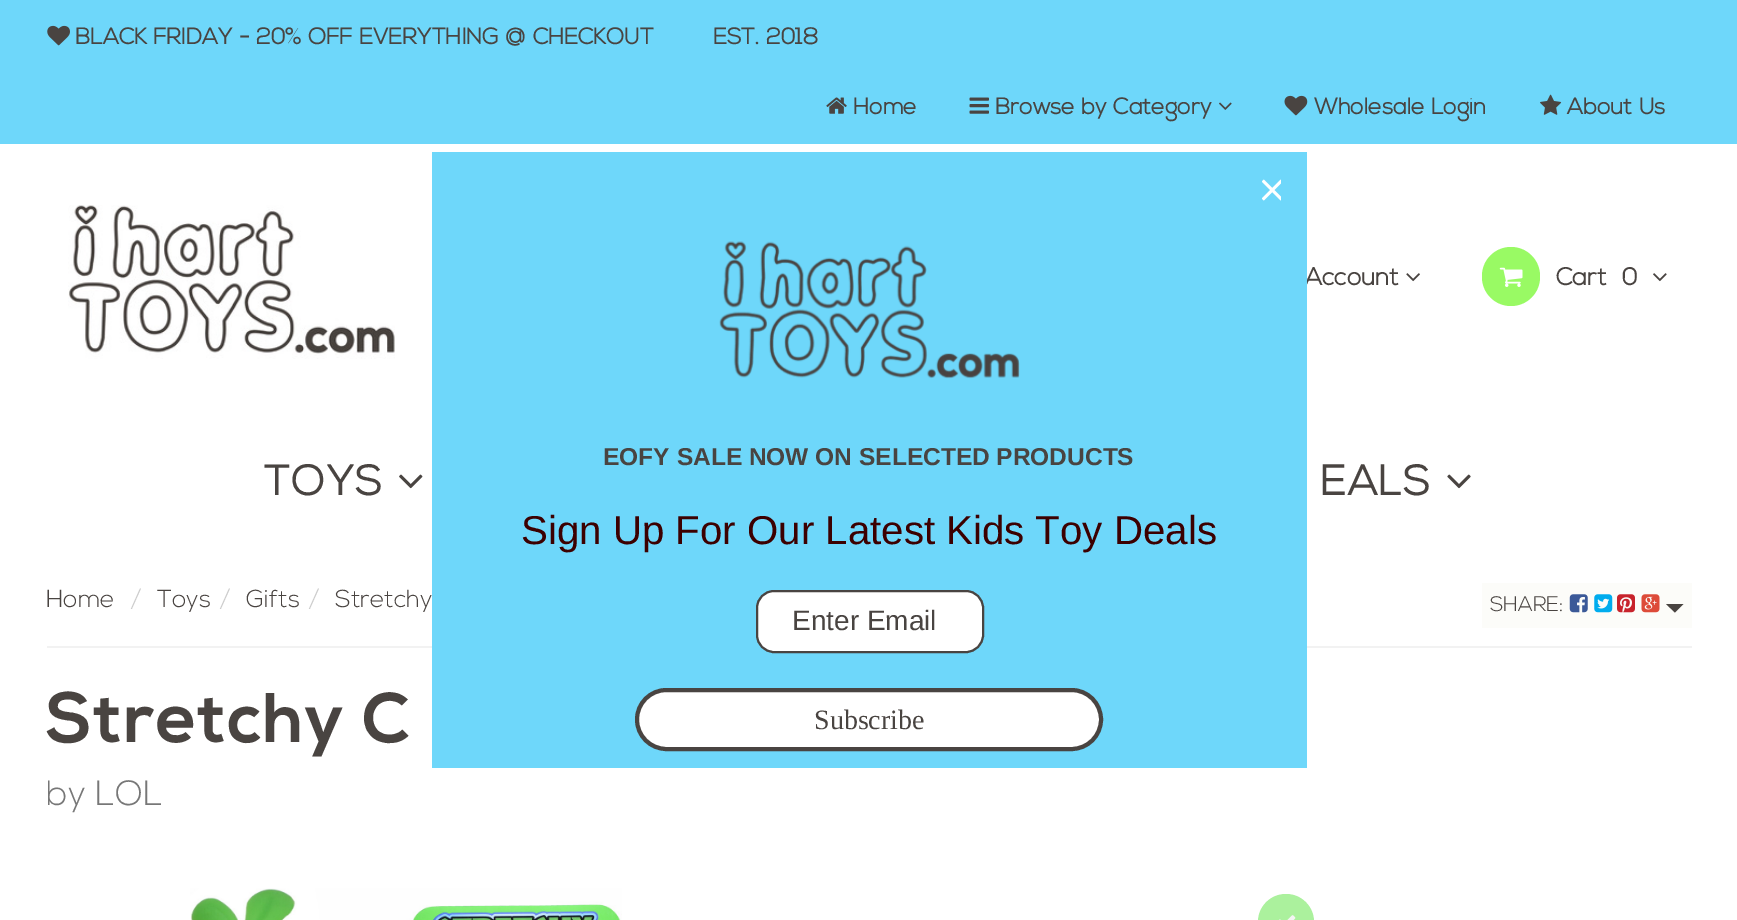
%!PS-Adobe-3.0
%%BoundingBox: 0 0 1737 920
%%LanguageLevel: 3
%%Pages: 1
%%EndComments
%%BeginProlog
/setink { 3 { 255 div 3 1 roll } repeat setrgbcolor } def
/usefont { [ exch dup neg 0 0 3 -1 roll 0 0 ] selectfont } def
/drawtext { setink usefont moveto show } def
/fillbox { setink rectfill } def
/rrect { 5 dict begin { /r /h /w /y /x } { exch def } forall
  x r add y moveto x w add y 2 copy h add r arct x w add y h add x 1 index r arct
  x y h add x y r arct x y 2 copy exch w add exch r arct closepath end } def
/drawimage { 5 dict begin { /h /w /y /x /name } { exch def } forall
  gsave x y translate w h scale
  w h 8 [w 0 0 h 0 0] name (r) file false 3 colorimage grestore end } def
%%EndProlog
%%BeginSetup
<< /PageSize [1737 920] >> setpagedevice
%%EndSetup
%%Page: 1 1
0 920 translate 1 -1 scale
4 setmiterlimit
0 0 1737 920 255 255 255 fillbox
0 0 1737 144 110 215 250 fillbox
(assets/img1.rgb) 47 25 23 21 drawimage
(BLACK FRIDAY - 20% OFF EVERYTHING @ CHECKOUT) 75 44 /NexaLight-Bold 22.75 73 68 65 drawtext
(EST. 2018) 713 44 /NexaLight-Bold 22.75 73 68 65 drawtext
(assets/img2.rgb) 826 97 21 17 drawimage
(Home) 853 114 /NexaLight-Bold 22.75 73 68 65 drawtext
(assets/img3.rgb) 969 97 20 17 drawimage
(Browse by Category) 995 114 /NexaLight-Bold 22.75 73 68 65 drawtext
(assets/img4.rgb) 1219 102 13 8 drawimage
(assets/img5.rgb) 1284 95 24 21 drawimage
(Wholesale Login) 1314 114 /NexaLight-Bold 22.75 73 68 65 drawtext
(assets/img6.rgb) 1540 94 22 21 drawimage
(About Us) 1567 114 /NexaLight-Bold 22.75 73 68 65 drawtext
(assets/img7.rgb) 68 205 327 154 drawimage
(Account) 1305 285 /NexaLight-Bold 24.5 73 68 65 drawtext
(assets/img8.rgb) 1406 273 14 9 drawimage
153 250 100 setink
1482 247 58 59 29 rrect fill
(assets/img9.rgb) 1499 267 24 20 drawimage
(Cart) 1556 285 /NexaLight-Bold 24.5 73 68 65 drawtext
(0) 1622 285 /NexaLight-Bold 24.5 73 68 65 drawtext
(assets/img10.rgb) 1653 273 14 9 drawimage
47 646 1645 2 242 242 242 fillbox
432 152 875 616 110 215 250 fillbox
(assets/img11.rgb) 1262 179 19 22 drawimage
(assets/img12.rgb) 719 241 301 138 drawimage
(EOFY SALE NOW ON SELECTED PRODUCTS) 603 465 /LiberationSans-Bold 24.5 73 68 65 drawtext
(Sign Up For Our Latest Kids Toy Deals) 521 544 /LiberationSans-Regular 40.25 60 0 0 drawtext
255 255 255 setink
757 591 226 61 17 rrect gsave fill grestore
73 68 65 setink
2 setlinewidth
stroke
(Enter Email) 792 630 /LiberationSans-Regular 28 73 68 65 drawtext
255 255 255 setink
637 690 464 59 29.5 rrect gsave fill grestore
73 68 65 setink
4 setlinewidth
stroke
(Subscribe) 814 729 /LiberationSerif-Regular 28 73 68 65 drawtext
/NexaLight-Bold 42 usefont
264 495 moveto 1.75 0 (TOYS) ashow
(assets/img13.rgb) 399 474 24 15 drawimage
1320 495 moveto 1.75 0 (EALS) ashow
(assets/img14.rgb) 1447 474 24 15 drawimage
(Home) 46 607 /NexaLight-Light 24.5 73 68 65 drawtext
(/) 131 607 /NexaLight-Light 24.5 204 204 204 drawtext
(Toys) 157 607 /NexaLight-Light 24.5 73 68 65 drawtext
(/) 220 607 /NexaLight-Light 24.5 204 204 204 drawtext
(Gifts) 246 607 /NexaLight-Light 24.5 73 68 65 drawtext
(/) 309 607 /NexaLight-Light 24.5 204 204 204 drawtext
(Stretchy) 335 607 /NexaLight-Light 24.5 73 68 65 drawtext
1482 583 210 45 252 252 249 fillbox
(SHARE:) 1490 611 /NexaLight-Light 21 73 68 65 drawtext
(assets/img15.rgb) 1569 594 19 19 drawimage
(assets/img16.rgb) 1594 594 19 19 drawimage
(assets/img17.rgb) 1617 594 18 19 drawimage
(assets/img18.rgb) 1641 594 19 19 drawimage
1666 604 moveto 1683.5 604 lineto 1675 612.5 lineto closepath fill
/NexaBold-Bold 70 usefont
46 742 moveto 1.75 0 (Stretchy C) ashow
(by LOL) 46 805 /NexaLight-Light 35 119 119 119 drawtext
(assets/img19.rgb) 190 888 432 32 drawimage
171 241 157 setink
1258 894 56 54 28 rrect fill
(assets/img20.rgb) 1279 915 17 5 drawimage
showpage
%%EOF
